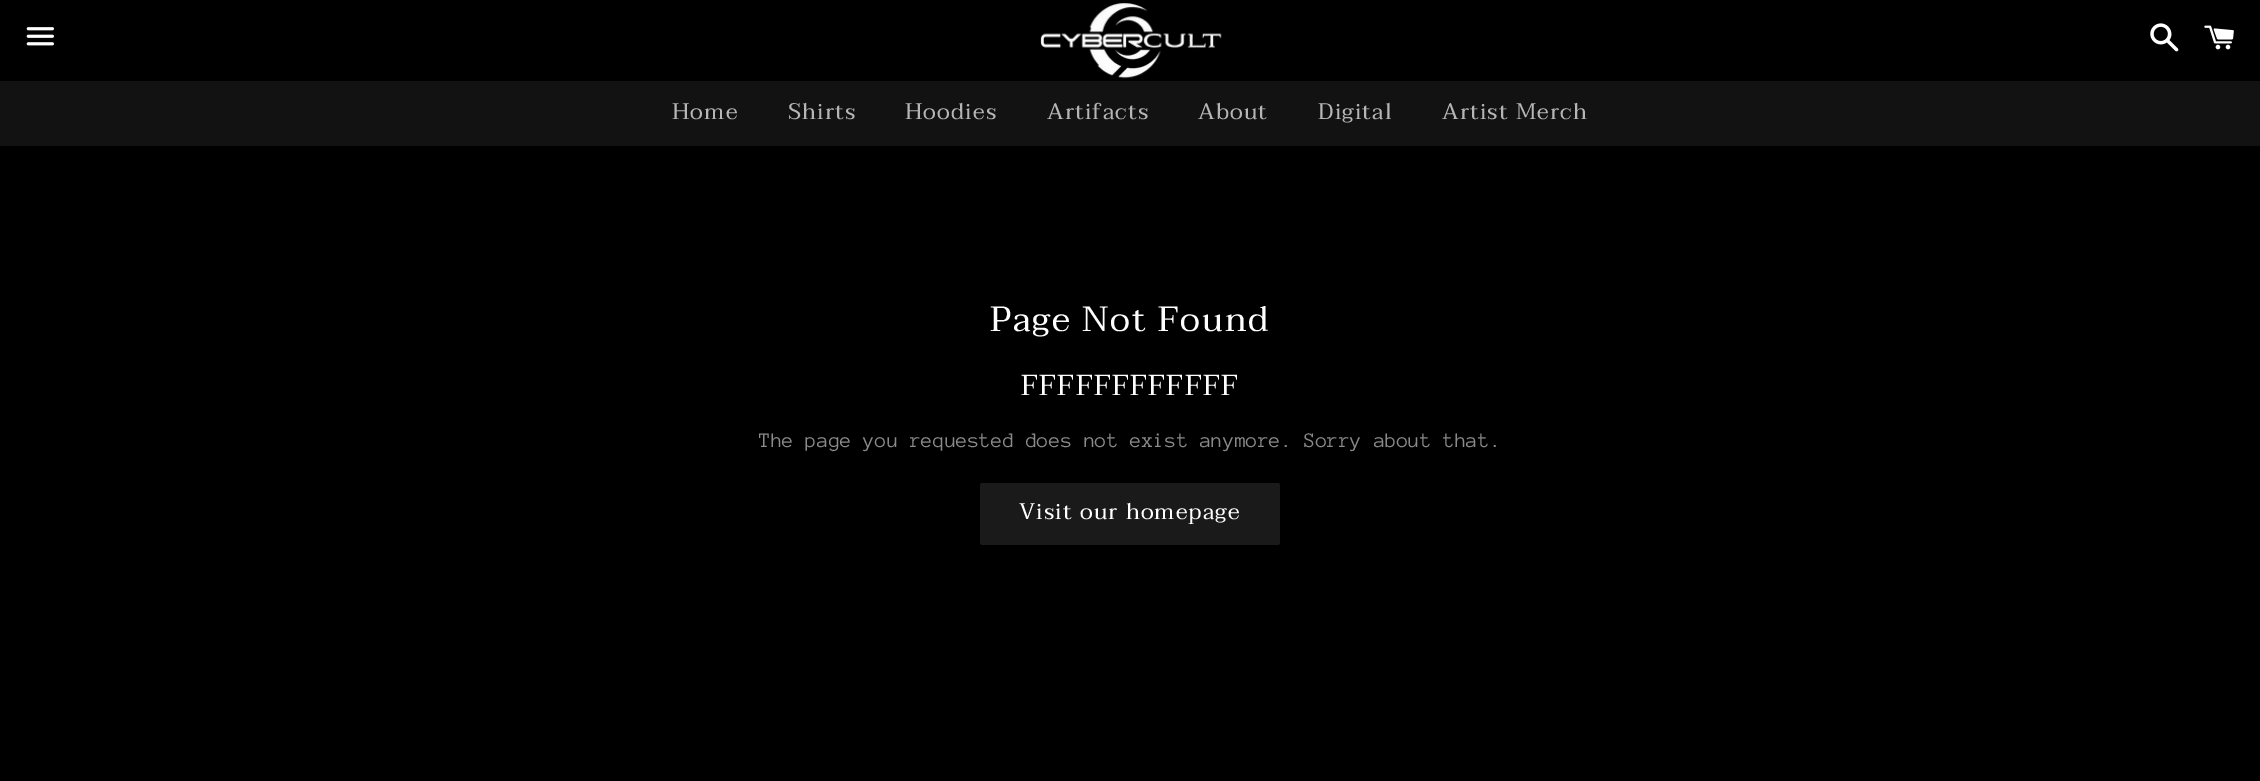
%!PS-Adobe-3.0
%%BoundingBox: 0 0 2260 781
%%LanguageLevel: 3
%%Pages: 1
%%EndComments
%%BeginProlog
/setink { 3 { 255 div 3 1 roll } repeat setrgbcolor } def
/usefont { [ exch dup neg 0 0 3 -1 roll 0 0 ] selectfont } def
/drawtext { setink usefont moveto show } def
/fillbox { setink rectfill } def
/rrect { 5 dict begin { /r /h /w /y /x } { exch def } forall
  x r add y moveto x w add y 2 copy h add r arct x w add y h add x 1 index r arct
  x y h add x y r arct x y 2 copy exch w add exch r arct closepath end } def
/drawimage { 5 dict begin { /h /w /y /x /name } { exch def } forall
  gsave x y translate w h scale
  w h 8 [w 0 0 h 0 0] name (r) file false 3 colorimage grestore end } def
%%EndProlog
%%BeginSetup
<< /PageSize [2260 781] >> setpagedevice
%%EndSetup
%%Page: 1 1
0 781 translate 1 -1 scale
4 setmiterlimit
0 0 2260 781 0 0 0 fillbox
(assets/img1.rgb) 26 27 28 19 drawimage
(assets/img2.rgb) 1040 3 182 76 drawimage
(assets/img3.rgb) 2150 23 29 29 drawimage
(assets/img4.rgb) 2204 25 30 25 drawimage
0 81 2260 65 18 18 18 fillbox
/Taviraj-Regular 22.5 usefont
182 182 182 setink
672 119 moveto 1.1 0 (Home) ashow
788 119 moveto 1.1 0 (Shirts) ashow
905 119 moveto 1.1 0 (Hoodies) ashow
1047 119 moveto 1.1 0 (Artifacts) ashow
1198 119 moveto 1.1 0 (About) ashow
1318 119 moveto 1.1 0 (Digital) ashow
1442 119 moveto 1.1 0 (Artist Merch) ashow
/Taviraj-Regular 35 usefont
255 255 255 setink
990 331 moveto 1.75 0 (Page Not Found) ashow
/Taviraj-Regular 28.75 usefont
1021 395 moveto 1.5 0 (FFFFFFFFFFFF) ashow
(The page you requested does not exist anymore. Sorry about that.) 759 447 /AnonymousPro-Regular 21.25 139 139 139 drawtext
26 26 26 setink
980 483 300 62 2.5 rrect fill
/Taviraj-Regular 22.5 usefont
255 255 255 setink
1019 519 moveto 1.1 0 (Visit our homepage) ashow
showpage
%%EOF
